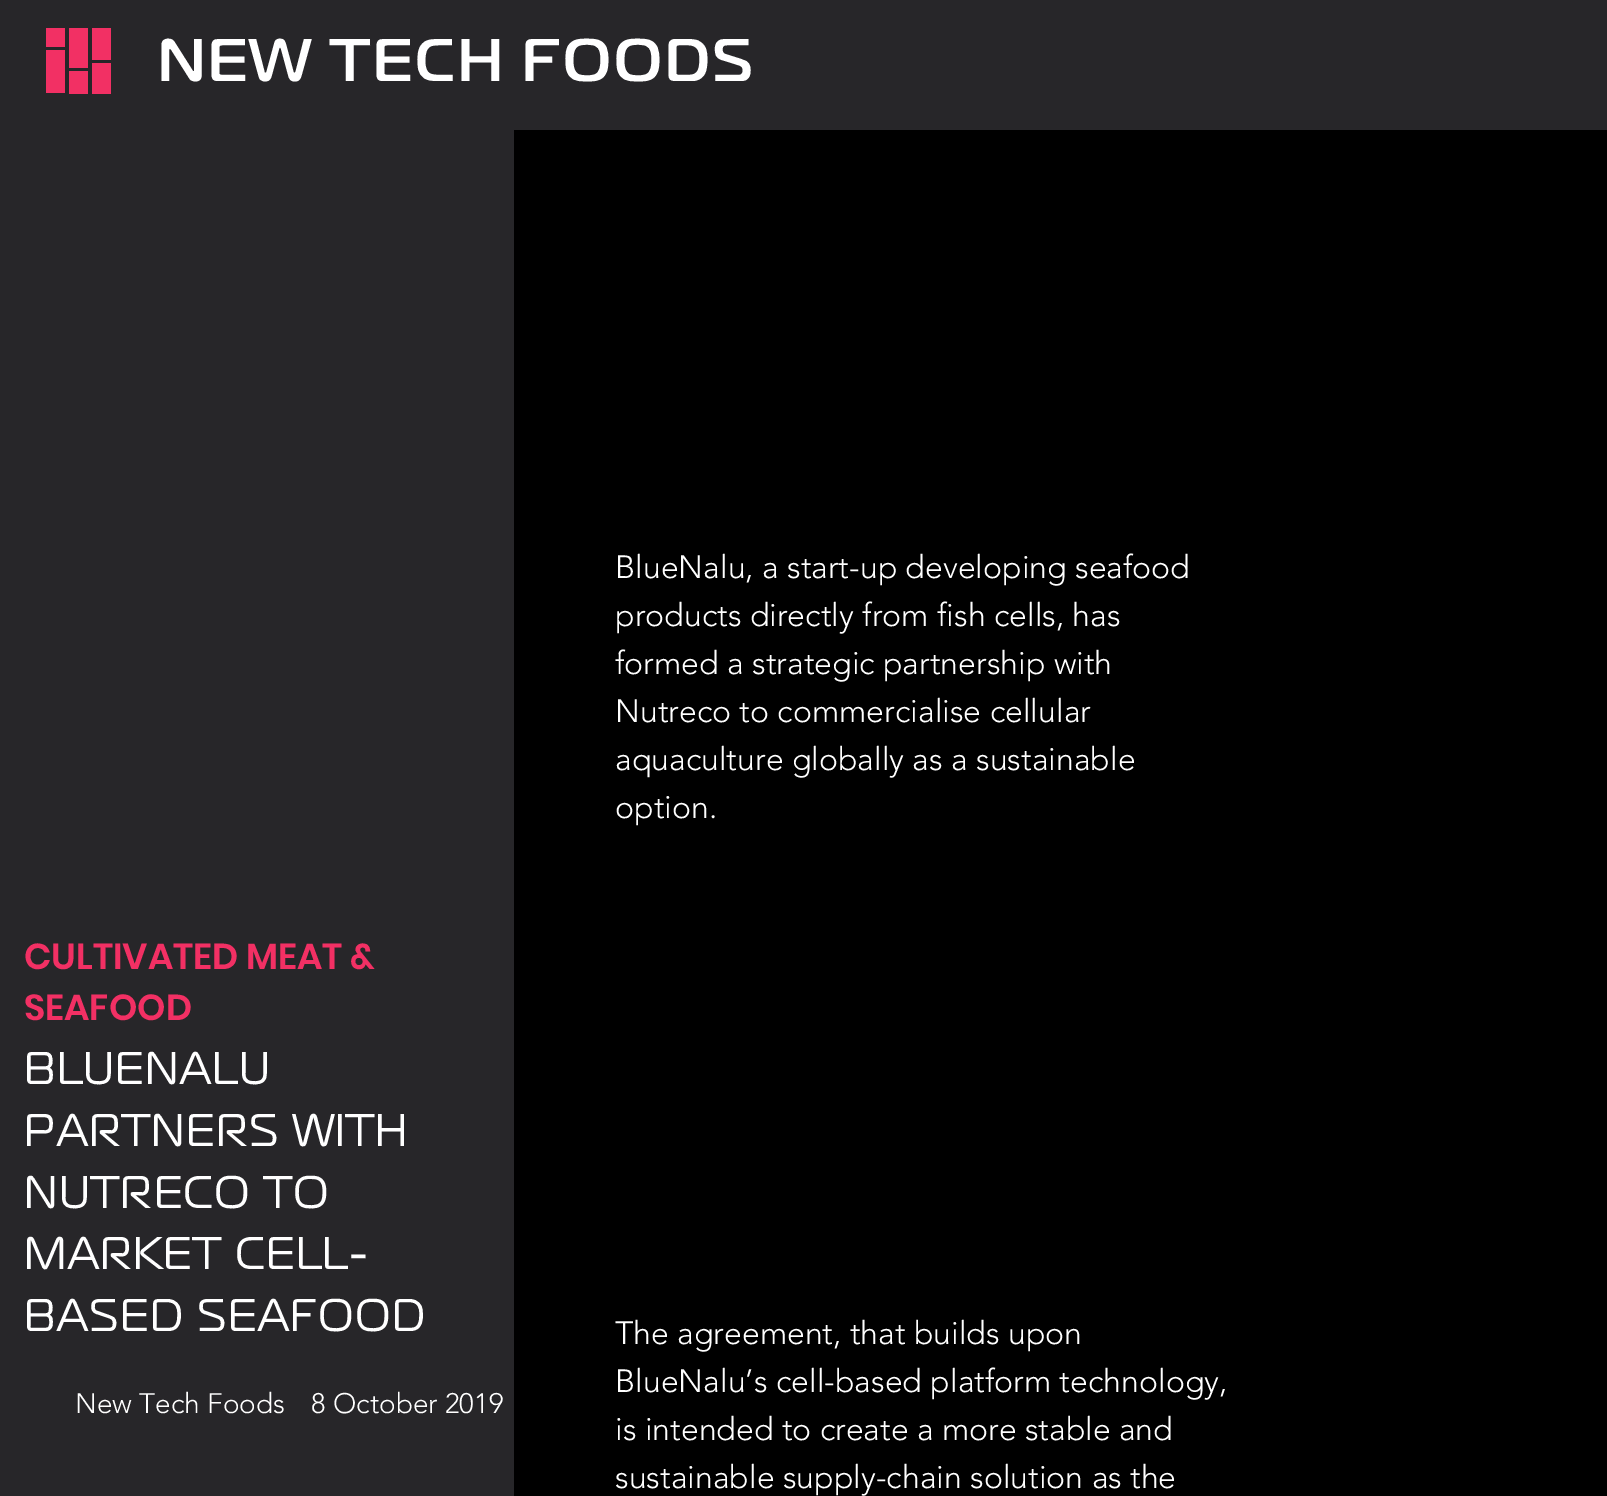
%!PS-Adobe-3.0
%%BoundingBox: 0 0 1607 1496
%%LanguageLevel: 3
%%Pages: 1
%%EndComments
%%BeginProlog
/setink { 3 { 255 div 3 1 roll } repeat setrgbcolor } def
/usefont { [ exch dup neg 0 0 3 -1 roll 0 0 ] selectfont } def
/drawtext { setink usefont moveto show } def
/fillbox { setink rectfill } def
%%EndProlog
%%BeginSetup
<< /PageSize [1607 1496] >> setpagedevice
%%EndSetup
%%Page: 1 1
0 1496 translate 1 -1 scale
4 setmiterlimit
0 0 1607 1496 0 0 0 fillbox
0 0 1607 130 39 38 41 fillbox
46 28 19 19 242 48 100 fillbox
46 50 19 43 242 48 100 fillbox
69 28 19 40 242 48 100 fillbox
69 71 19 23 242 48 100 fillbox
92 28 19 32 242 48 100 fillbox
92 63 19 31 242 48 100 fillbox
/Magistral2-Bold 60 usefont
255 255 255 setink
158 81 moveto 3 0 (NEW TECH FOODS) ashow
0 130 514 1366 39 38 41 fillbox
(CULTIVATED MEAT &) 24 969 /Poppins-SemiBold 36 242 48 100 drawtext
(SEAFOOD) 24 1020 /Poppins-SemiBold 36 242 48 100 drawtext
/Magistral-Bold 44 usefont
255 255 255 setink
24 1084 moveto 2.6 0 (BLUENALU) ashow
24 1146 moveto 2.6 0 (PARTNERS WITH) ashow
24 1208 moveto 2.6 0 (NUTRECO TO) ashow
24 1269 moveto 2.6 0 (MARKET CELL-) ashow
24 1331 moveto 2.6 0 (BASED SEAFOOD) ashow
(New Tech Foods) 75 1413 /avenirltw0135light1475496-Light 28 255 255 255 drawtext
(8 October 2019) 311 1413 /avenirltw0135light1475496-Light 28 255 255 255 drawtext
(BlueNalu, a start-up developing seafood) 615 578 /avenirltw0135light1475496-Light 32 255 255 255 drawtext
(products directly from fish cells, has) 615 626 /avenirltw0135light1475496-Light 32 255 255 255 drawtext
(formed a strategic partnership with) 615 674 /avenirltw0135light1475496-Light 32 255 255 255 drawtext
(Nutreco to commercialise cellular) 615 722 /avenirltw0135light1475496-Light 32 255 255 255 drawtext
(aquaculture globally as a sustainable) 615 770 /avenirltw0135light1475496-Light 32 255 255 255 drawtext
(option.) 615 818 /avenirltw0135light1475496-Light 32 255 255 255 drawtext
(The agreement, that builds upon) 615 1344 /avenirltw0135light1475496-Light 32 255 255 255 drawtext
(BlueNalu’s cell-based platform technology,) 615 1392 /avenirltw0135light1475496-Light 32 255 255 255 drawtext
(is intended to create a more stable and) 615 1440 /avenirltw0135light1475496-Light 32 255 255 255 drawtext
(sustainable supply-chain solution as the) 615 1488 /avenirltw0135light1475496-Light 32 255 255 255 drawtext
showpage
%%EOF
